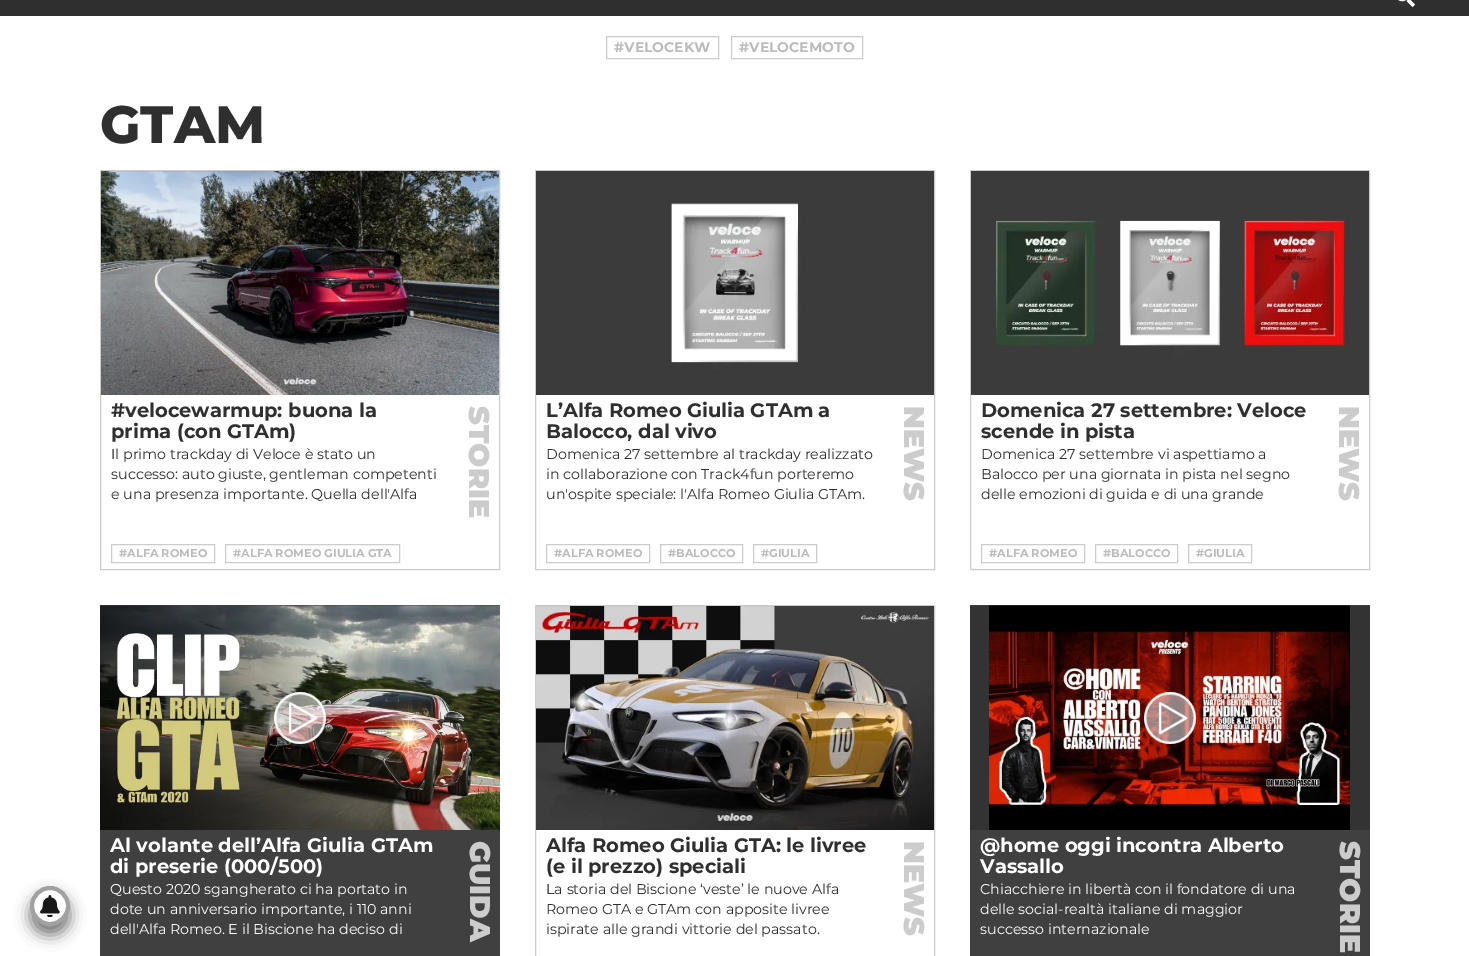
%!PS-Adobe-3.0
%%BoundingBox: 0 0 1469 956
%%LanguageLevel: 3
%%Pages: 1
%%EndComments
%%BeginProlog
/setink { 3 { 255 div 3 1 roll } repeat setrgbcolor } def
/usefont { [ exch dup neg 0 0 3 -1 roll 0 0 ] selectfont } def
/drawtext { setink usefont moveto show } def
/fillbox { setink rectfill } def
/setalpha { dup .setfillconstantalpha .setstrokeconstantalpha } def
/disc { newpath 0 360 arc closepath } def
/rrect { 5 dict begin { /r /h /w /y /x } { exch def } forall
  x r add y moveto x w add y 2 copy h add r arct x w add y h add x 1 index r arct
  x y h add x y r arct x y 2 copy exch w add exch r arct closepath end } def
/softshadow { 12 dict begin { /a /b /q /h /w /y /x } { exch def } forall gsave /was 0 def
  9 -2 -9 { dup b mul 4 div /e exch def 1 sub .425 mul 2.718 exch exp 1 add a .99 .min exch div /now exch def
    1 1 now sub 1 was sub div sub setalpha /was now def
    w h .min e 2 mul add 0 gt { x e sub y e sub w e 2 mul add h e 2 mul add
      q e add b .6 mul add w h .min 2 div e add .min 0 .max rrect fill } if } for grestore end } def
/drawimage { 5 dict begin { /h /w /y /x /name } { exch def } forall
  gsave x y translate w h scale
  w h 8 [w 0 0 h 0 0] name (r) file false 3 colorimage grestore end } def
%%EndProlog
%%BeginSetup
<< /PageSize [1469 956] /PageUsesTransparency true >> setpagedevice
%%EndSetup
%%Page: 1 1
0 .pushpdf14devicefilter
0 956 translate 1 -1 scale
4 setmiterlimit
0 0 1469 956 255 255 255 fillbox
0 0 1469 16 47 47 47 fillbox
(assets/img1.rgb) 1398 0 17 7 drawimage
204 204 204 setink
606.5 36.5 112 22 rectstroke
(#VELOCEKW) 614 52 /Montserrat-Bold 14 187 187 187 drawtext
204 204 204 setink
731.5 36.5 131 22 rectstroke
(#VELOCEMOTO) 739 52 /Montserrat-Bold 14 187 187 187 drawtext
26 26 26 setink
30 895 40 40 20 7.5 0.6 softshadow
255 255 255 setink
50 906 18 disc gsave fill grestore
161 161 161 setink
4 setlinewidth
stroke
(assets/img2.rgb) 40 895 20 22 drawimage
(GTAM) 100 143 /Montserrat-ExtraBold 52.5 47 47 47 drawtext
204 204 204 setink
1 setlinewidth
100.5 170.5 399 399 rectstroke
(assets/img3.rgb) 101 171 398 224 drawimage
(#velocewarmup: buona la) 111 417 /Montserrat-Bold 19.5 47 47 47 drawtext
(prima \(con GTAm\)) 111 438 /Montserrat-Bold 19.5 47 47 47 drawtext
(Il primo trackday di Veloce è stato un) 111 459 /Montserrat-Regular 14.25 47 47 47 drawtext
(successo: auto giuste, gentleman competenti) 111 479 /Montserrat-Regular 14.25 47 47 47 drawtext
(e una presenza importante. Quella dell'Alfa) 111 499 /Montserrat-Regular 14.25 47 47 47 drawtext
/Montserrat-Black 28.5 usefont
204 204 204 setink
gsave 469 406 translate 90 rotate 0 0 moveto (STORIE) show grestore
111.5 544.5 103 18 rectstroke
(#ALFA ROMEO) 119 557 /Montserrat-Bold 11.25 187 187 187 drawtext
204 204 204 setink
225.5 544.5 174 18 rectstroke
(#ALFA ROMEO GIULIA GTA) 233 557 /Montserrat-Bold 11.25 187 187 187 drawtext
204 204 204 setink
535.5 170.5 399 399 rectstroke
(assets/img4.rgb) 536 171 398 224 drawimage
(L’Alfa Romeo Giulia GTAm a) 546 417 /Montserrat-Bold 19.5 47 47 47 drawtext
(Balocco, dal vivo) 546 438 /Montserrat-Bold 19.5 47 47 47 drawtext
(Domenica 27 settembre al trackday realizzato) 546 459 /Montserrat-Regular 14.25 47 47 47 drawtext
(in collaborazione con Track4fun porteremo) 546 479 /Montserrat-Regular 14.25 47 47 47 drawtext
(un'ospite speciale: l'Alfa Romeo Giulia GTAm.) 546 499 /Montserrat-Regular 14.25 47 47 47 drawtext
/Montserrat-Black 28.5 usefont
204 204 204 setink
gsave 904 406 translate 90 rotate 0 0 moveto (NEWS) show grestore
546.5 544.5 103 18 rectstroke
(#ALFA ROMEO) 554 557 /Montserrat-Bold 11.25 187 187 187 drawtext
204 204 204 setink
660.5 544.5 82 18 rectstroke
(#BALOCCO) 668 557 /Montserrat-Bold 11.25 187 187 187 drawtext
204 204 204 setink
753.5 544.5 63 18 rectstroke
(#GIULIA) 761 557 /Montserrat-Bold 11.25 187 187 187 drawtext
204 204 204 setink
970.5 170.5 399 399 rectstroke
(assets/img5.rgb) 971 171 398 224 drawimage
(Domenica 27 settembre: Veloce) 981 417 /Montserrat-Bold 19.5 47 47 47 drawtext
(scende in pista) 981 438 /Montserrat-Bold 19.5 47 47 47 drawtext
(Domenica 27 settembre vi aspettiamo a) 981 459 /Montserrat-Regular 14.25 47 47 47 drawtext
(Balocco per una giornata in pista nel segno) 981 479 /Montserrat-Regular 14.25 47 47 47 drawtext
(delle emozioni di guida e di una grande) 981 499 /Montserrat-Regular 14.25 47 47 47 drawtext
/Montserrat-Black 28.5 usefont
204 204 204 setink
gsave 1339 406 translate 90 rotate 0 0 moveto (NEWS) show grestore
981.5 544.5 103 18 rectstroke
(#ALFA ROMEO) 989 557 /Montserrat-Bold 11.25 187 187 187 drawtext
204 204 204 setink
1095.5 544.5 82 18 rectstroke
(#BALOCCO) 1103 557 /Montserrat-Bold 11.25 187 187 187 drawtext
204 204 204 setink
1188.5 544.5 63 18 rectstroke
(#GIULIA) 1196 557 /Montserrat-Bold 11.25 187 187 187 drawtext
100 605 400 351 64 64 64 fillbox
(assets/img6.rgb) 100 605 400 225 drawimage
(assets/img7.rgb) 274 692 52 52 drawimage
(Al volante dell’Alfa Giulia GTAm) 110 852 /Montserrat-Bold 19.5 255 255 255 drawtext
(di preserie \(000/500\)) 110 873 /Montserrat-Bold 19.5 255 255 255 drawtext
(Questo 2020 sgangherato ci ha portato in) 110 894 /Montserrat-Regular 14.25 255 255 255 drawtext
(dote un anniversario importante, i 110 anni) 110 914 /Montserrat-Regular 14.25 255 255 255 drawtext
(dell'Alfa Romeo. E il Biscione ha deciso di) 110 934 /Montserrat-Regular 14.25 255 255 255 drawtext
/Montserrat-Black 28.5 usefont
204 204 204 setink
gsave 470 841 translate 90 rotate 0 0 moveto (GUIDA) show grestore
535.5 605.5 399 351 rectstroke
(assets/img8.rgb) 536 606 398 224 drawimage
(Alfa Romeo Giulia GTA: le livree) 546 852 /Montserrat-Bold 19.5 47 47 47 drawtext
(\(e il prezzo\) speciali) 546 873 /Montserrat-Bold 19.5 47 47 47 drawtext
(La storia del Biscione ‘veste’ le nuove Alfa) 546 894 /Montserrat-Regular 14.25 47 47 47 drawtext
(Romeo GTA e GTAm con apposite livree) 546 914 /Montserrat-Regular 14.25 47 47 47 drawtext
(ispirate alle grandi vittorie del passato.) 546 934 /Montserrat-Regular 14.25 47 47 47 drawtext
/Montserrat-Black 28.5 usefont
204 204 204 setink
gsave 904 841 translate 90 rotate 0 0 moveto (NEWS) show grestore
970 605 400 351 64 64 64 fillbox
970 606 400 224 51 51 51 fillbox
(assets/img9.rgb) 989 605 361 225 drawimage
(assets/img10.rgb) 1144 692 52 52 drawimage
(@home oggi incontra Alberto) 980 852 /Montserrat-Bold 19.5 255 255 255 drawtext
(Vassallo) 980 873 /Montserrat-Bold 19.5 255 255 255 drawtext
(Chiacchiere in libertà con il fondatore di una) 980 894 /Montserrat-Regular 14.25 255 255 255 drawtext
(delle social-realtà italiane di maggior) 980 914 /Montserrat-Regular 14.25 255 255 255 drawtext
(successo internazionale) 980 934 /Montserrat-Regular 14.25 255 255 255 drawtext
/Montserrat-Black 28.5 usefont
204 204 204 setink
gsave 1340 841 translate 90 rotate 0 0 moveto (STORIE) show grestore
.poppdf14devicefilter showpage
%%EOF
